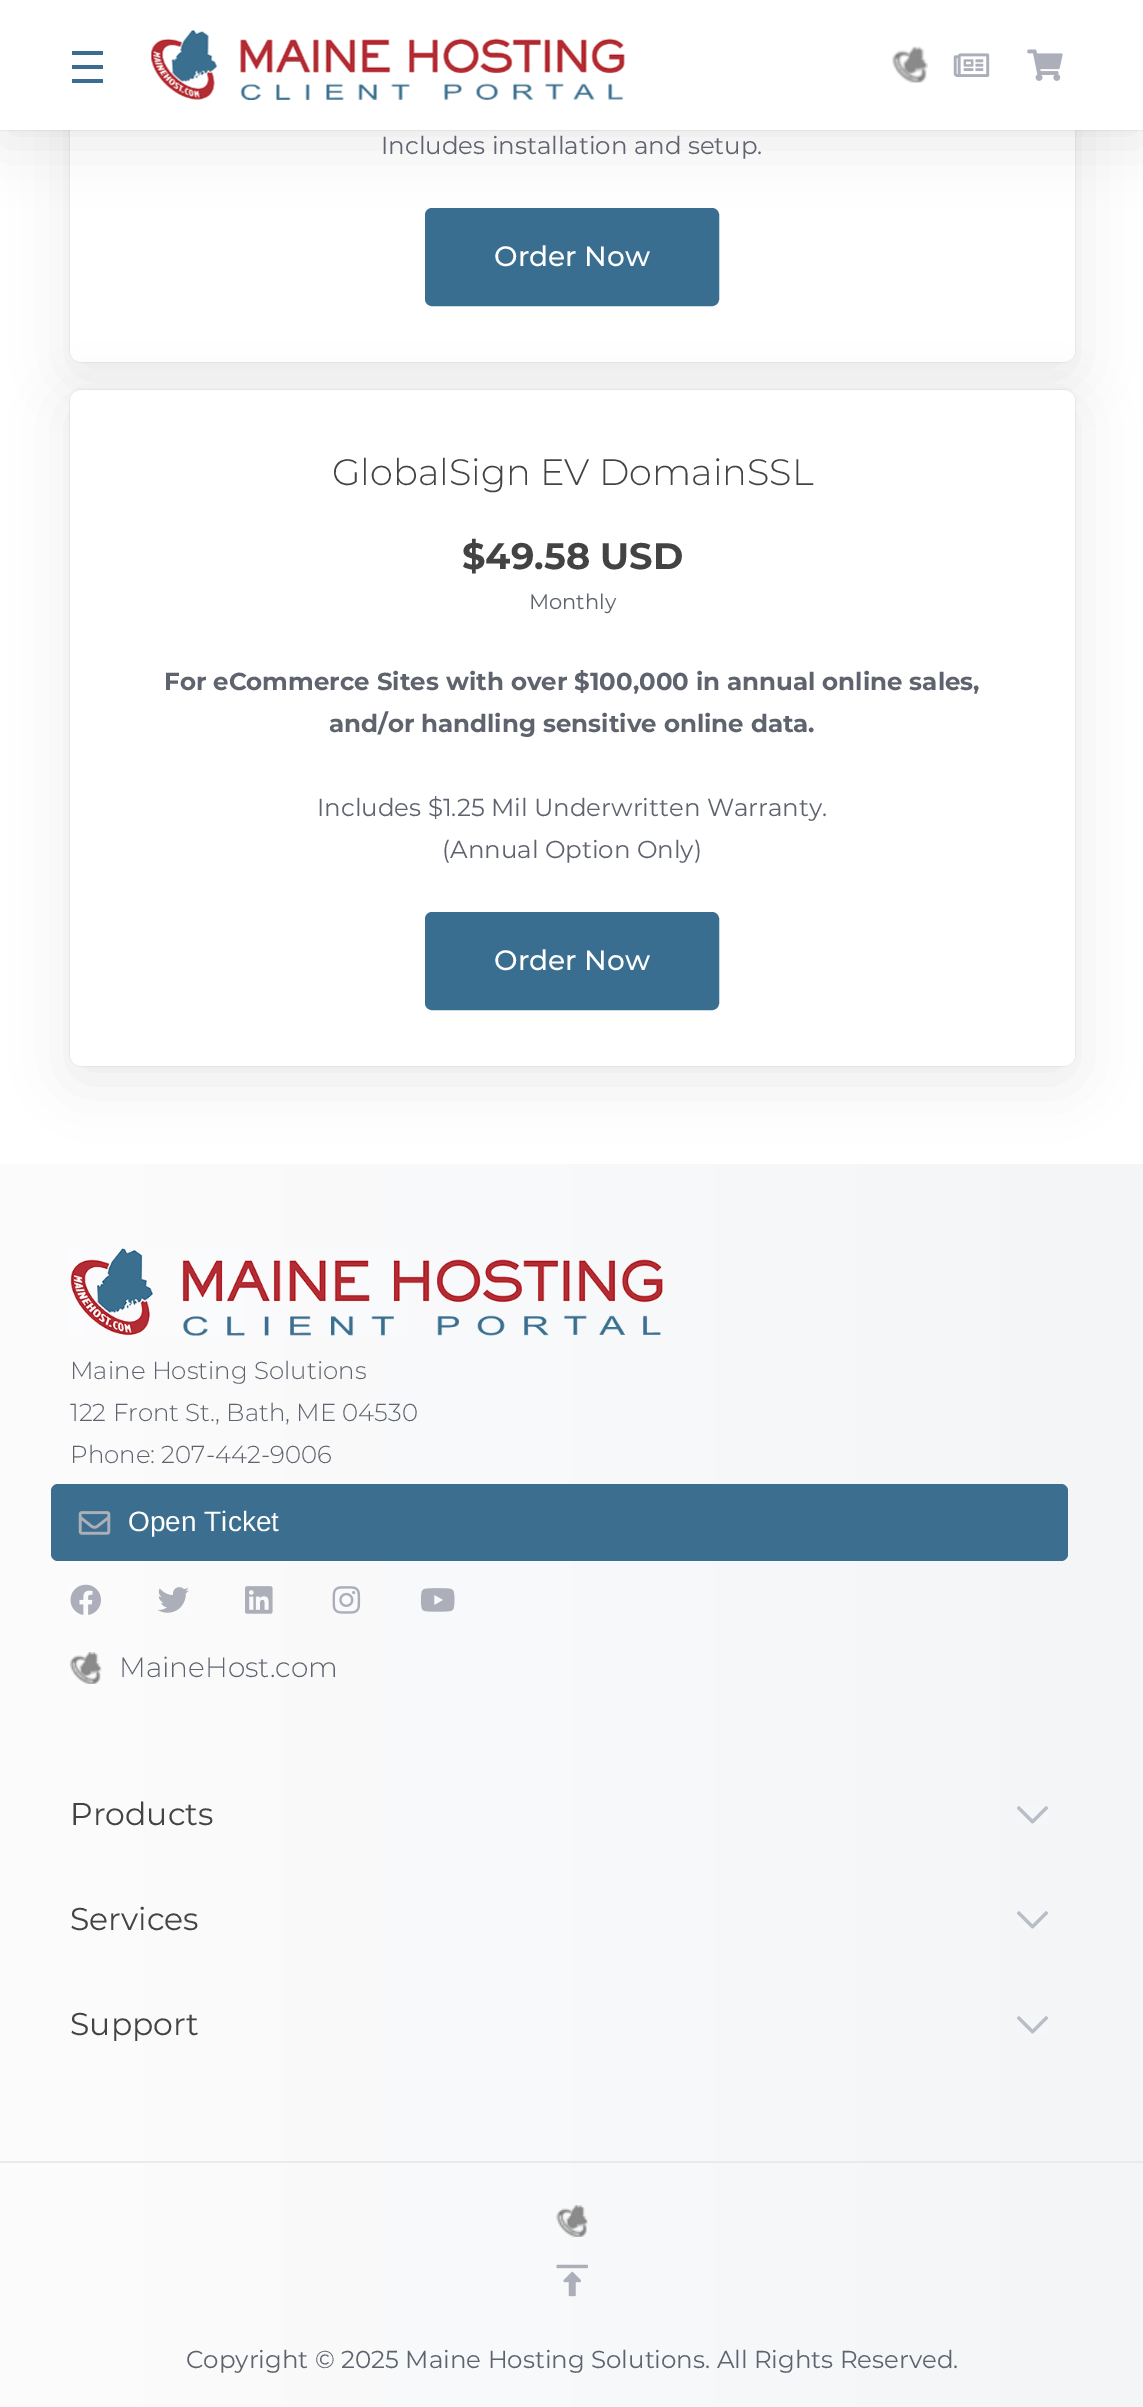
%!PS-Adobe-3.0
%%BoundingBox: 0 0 1143 2407
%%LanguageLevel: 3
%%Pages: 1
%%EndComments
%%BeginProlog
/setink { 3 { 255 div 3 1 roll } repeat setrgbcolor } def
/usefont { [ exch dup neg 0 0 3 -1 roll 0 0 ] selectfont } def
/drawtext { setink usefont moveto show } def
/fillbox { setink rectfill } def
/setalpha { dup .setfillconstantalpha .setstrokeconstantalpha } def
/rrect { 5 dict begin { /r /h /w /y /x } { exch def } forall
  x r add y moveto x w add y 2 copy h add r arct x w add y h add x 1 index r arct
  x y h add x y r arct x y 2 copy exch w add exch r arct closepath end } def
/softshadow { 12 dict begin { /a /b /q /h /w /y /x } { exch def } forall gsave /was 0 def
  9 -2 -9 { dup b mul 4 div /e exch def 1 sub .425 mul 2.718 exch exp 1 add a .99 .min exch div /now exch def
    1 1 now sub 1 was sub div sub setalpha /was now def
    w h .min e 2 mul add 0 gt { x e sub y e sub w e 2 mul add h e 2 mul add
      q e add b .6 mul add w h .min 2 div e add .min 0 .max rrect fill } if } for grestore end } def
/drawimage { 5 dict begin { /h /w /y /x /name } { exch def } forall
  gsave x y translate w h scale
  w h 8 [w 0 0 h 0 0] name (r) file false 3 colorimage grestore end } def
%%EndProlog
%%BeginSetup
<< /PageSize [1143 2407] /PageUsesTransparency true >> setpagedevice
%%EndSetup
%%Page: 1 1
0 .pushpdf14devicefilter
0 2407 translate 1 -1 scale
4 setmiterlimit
0 0 1143 2407 255 255 255 fillbox
0 0 0 setink
70 -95 1005 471 11 28 0.08 softshadow
70 -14 1005 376 11 1 0.12 softshadow
255 255 255 setink
70 -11 1005 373 11 rrect fill
58 110 144 setink
426 209 292 96 6 rrect gsave fill grestore
2 setlinewidth
stroke
0 0 0 setink
0 14 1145 130 0 28 0.08 softshadow
0 0 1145 130 0 1 0.12 softshadow
0 0 1143 130 255 255 255 fillbox
72 51 31 4 58 110 144 fillbox
72 65 31 4 58 110 144 fillbox
72 79 31 4 58 110 144 fillbox
(assets/img1.rgb) 151 30 474 70 drawimage
(assets/img2.rgb) 892 46 36 37 drawimage
(assets/img3.rgb) 953 53 37 24 drawimage
(assets/img4.rgb) 1027 49 36 32 drawimage
(Includes installation and setup.) 381 154 /Montserrat-Regular 24.5 94 99 110 drawtext
(Order Now) 494 266 /Montserrat-Medium 28 255 255 255 drawtext
gsave 0 1164 moveto 1143 1164 lineto 1143 2407 lineto 0 2407 lineto closepath clip newpath
<< /ShadingType 2 /ColorSpace /DeviceRGB /Coords [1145 1786 0 1786] /Extend [true true] /Function << /FunctionType 2 /Domain [0 1] /C0 [0.953 0.961 0.969] /C1 [0.988 0.988 0.992] /N 1 >> >> shfill grestore
0 0 0 setink
70 404 1005 676 11 28 0.08 softshadow
70 390 1005 676 11 1 0.12 softshadow
255 255 255 setink
70 390 1005 676 11 rrect fill
(GlobalSign EV DomainSSL) 332 485 /Montserrat-Light 36.75 67 67 67 drawtext
($49.58 USD) 462 569 /Montserrat-Bold 36.75 67 67 67 drawtext
(Monthly) 529 609 /Montserrat-Regular 21 94 99 110 drawtext
(For eCommerce Sites with over $100,000 in annual online sales,) 164 690 /Montserrat-Bold 24.5 94 99 110 drawtext
(and/or handling sensitive online data.) 329 732 /Montserrat-Bold 24.5 94 99 110 drawtext
(Includes $1.25 Mil Underwritten Warranty.) 317 816 /Montserrat-Regular 24.5 94 99 110 drawtext
(\(Annual Option Only\)) 442 858 /Montserrat-Regular 24.5 94 99 110 drawtext
58 110 144 setink
426 913 292 96 6 rrect gsave fill grestore
stroke
(Order Now) 494 970 /Montserrat-Medium 28 255 255 255 drawtext
(assets/img5.rgb) 70 1248 593 88 drawimage
(Maine Hosting Solutions) 70 1379 /Montserrat-Light 24.5 94 99 110 drawtext
(122 Front St., Bath, ME 04530) 70 1421 /Montserrat-Light 24.5 94 99 110 drawtext
(Phone: 207-442-9006) 70 1463 /Montserrat-Light 24.5 94 99 110 drawtext
59 110 143 setink
51 1484 1017 77 7 rrect fill
(assets/img6.rgb) 78 1511 33 24 drawimage
(Open Ticket) 128 1531 /LiberationSans-Regular 28 255 255 255 drawtext
(assets/img7.rgb) 70 1584 31 31 drawimage
(assets/img8.rgb) 158 1587 31 26 drawimage
(assets/img9.rgb) 245 1586 28 28 drawimage
(assets/img10.rgb) 332 1586 29 28 drawimage
(assets/img11.rgb) 420 1588 35 24 drawimage
(assets/img12.rgb) 70 1652 32 32 drawimage
(MaineHost.com) 119 1677 /Montserrat-Light 28 94 99 110 drawtext
(Products) 70 1825 /Montserrat-Regular 31.5 67 67 67 drawtext
(assets/img13.rgb) 1017 1806 31 18 drawimage
(Services) 70 1930 /Montserrat-Regular 31.5 67 67 67 drawtext
(assets/img13.rgb) 1017 1911 31 18 drawimage
(Support) 70 2035 /Montserrat-Regular 31.5 67 67 67 drawtext
(assets/img13.rgb) 1017 2016 31 18 drawimage
0 2161 1143 2 233 234 236 fillbox
(assets/img14.rgb) 556 2205 32 32 drawimage
(assets/img15.rgb) 556 2264 32 33 drawimage
(Copyright © 2025 Maine Hosting Solutions. All Rights Reserved.) 186 2368 /Montserrat-Regular 24.5 94 99 110 drawtext
.poppdf14devicefilter showpage
%%EOF
